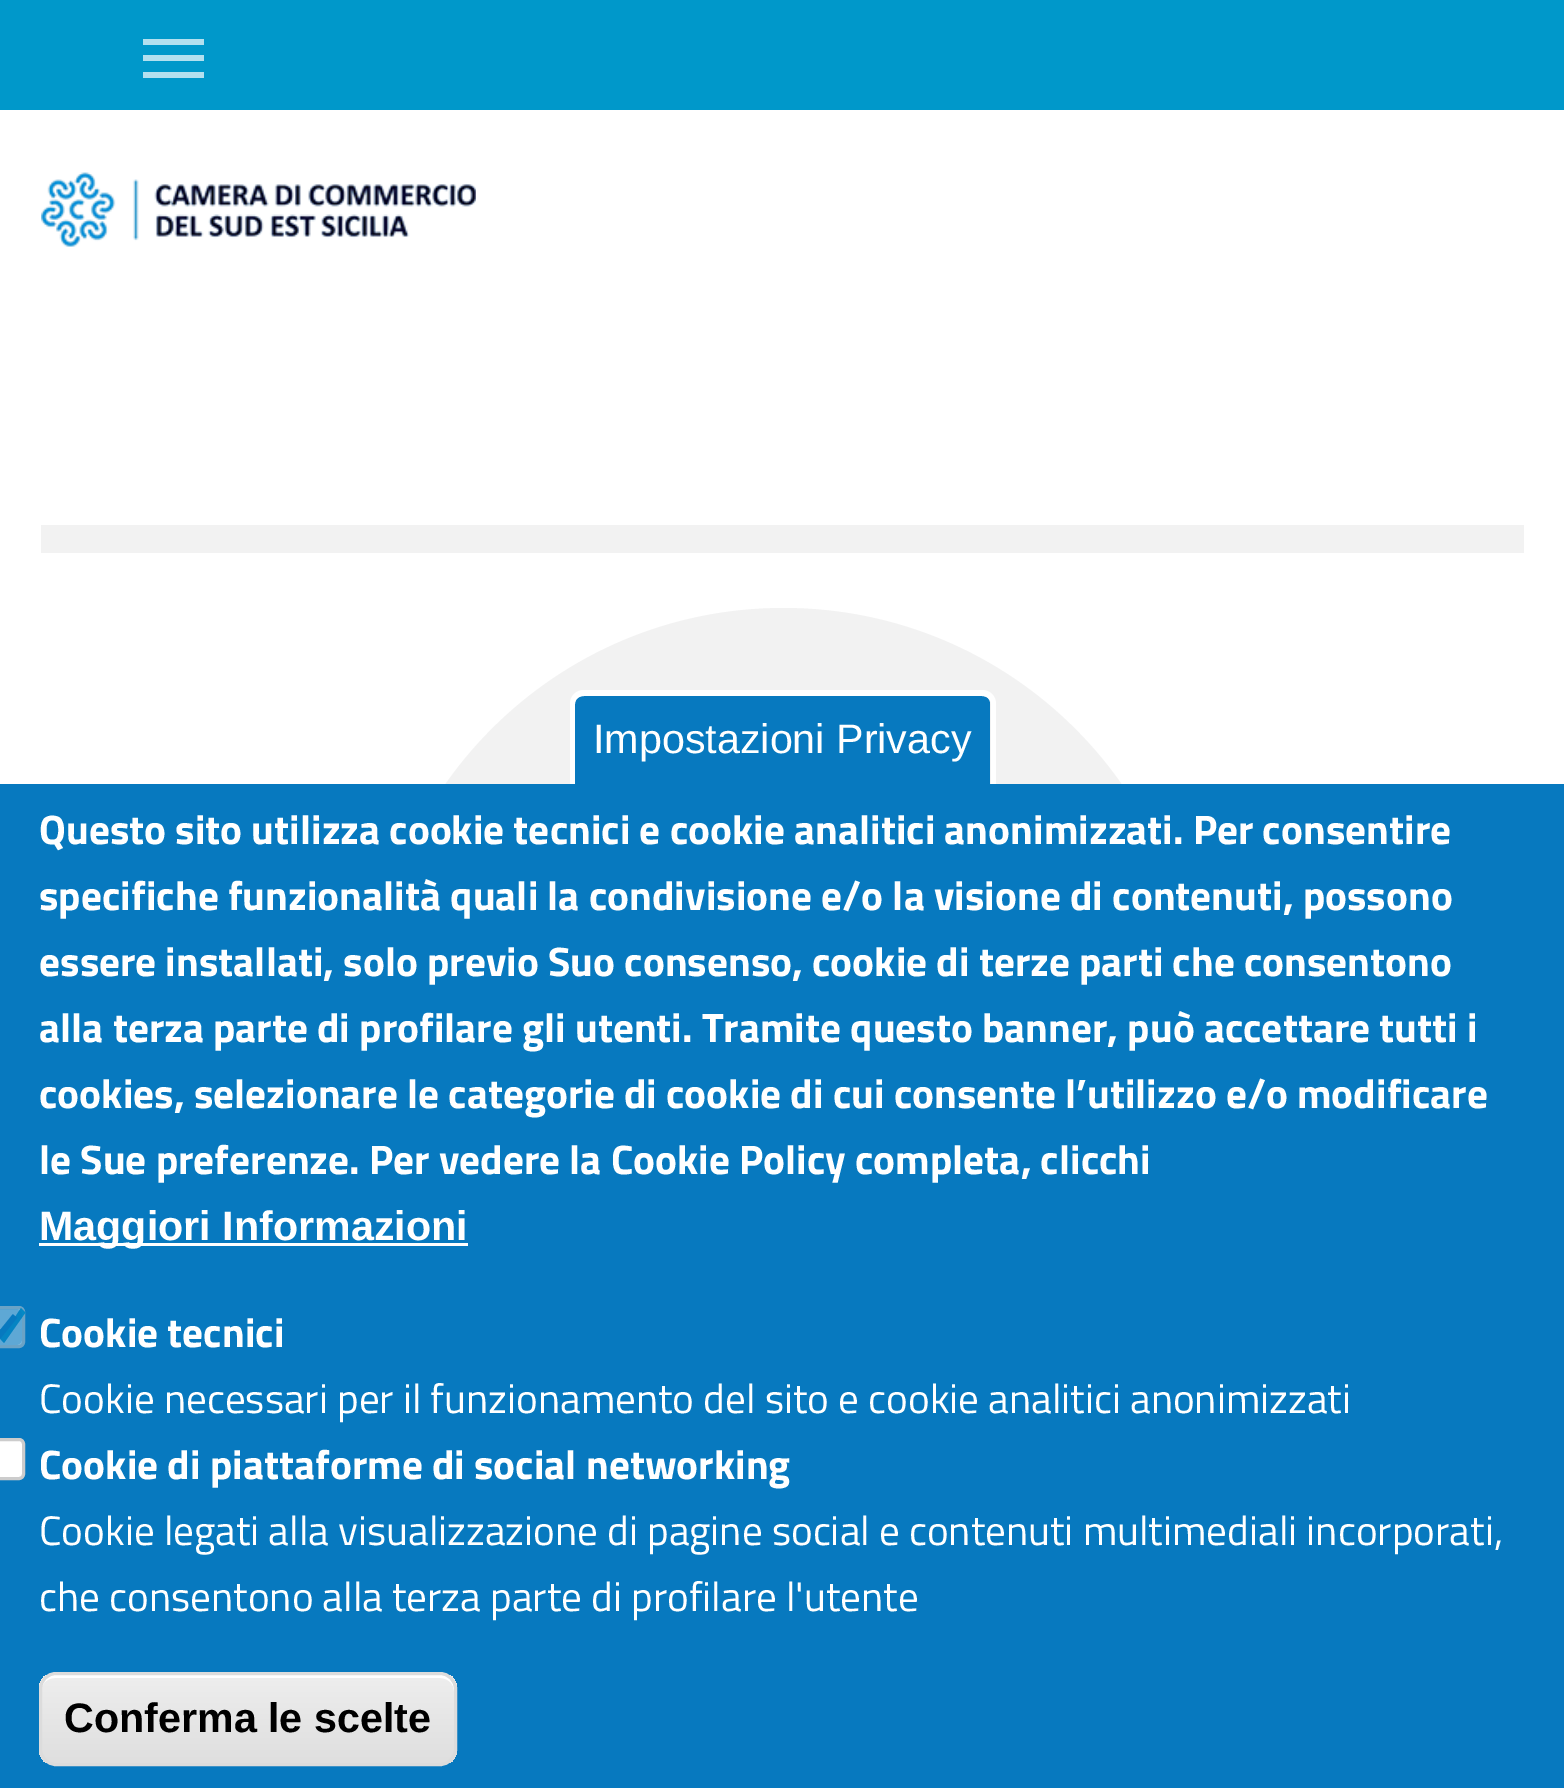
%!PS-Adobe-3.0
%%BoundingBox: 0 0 1564 1788
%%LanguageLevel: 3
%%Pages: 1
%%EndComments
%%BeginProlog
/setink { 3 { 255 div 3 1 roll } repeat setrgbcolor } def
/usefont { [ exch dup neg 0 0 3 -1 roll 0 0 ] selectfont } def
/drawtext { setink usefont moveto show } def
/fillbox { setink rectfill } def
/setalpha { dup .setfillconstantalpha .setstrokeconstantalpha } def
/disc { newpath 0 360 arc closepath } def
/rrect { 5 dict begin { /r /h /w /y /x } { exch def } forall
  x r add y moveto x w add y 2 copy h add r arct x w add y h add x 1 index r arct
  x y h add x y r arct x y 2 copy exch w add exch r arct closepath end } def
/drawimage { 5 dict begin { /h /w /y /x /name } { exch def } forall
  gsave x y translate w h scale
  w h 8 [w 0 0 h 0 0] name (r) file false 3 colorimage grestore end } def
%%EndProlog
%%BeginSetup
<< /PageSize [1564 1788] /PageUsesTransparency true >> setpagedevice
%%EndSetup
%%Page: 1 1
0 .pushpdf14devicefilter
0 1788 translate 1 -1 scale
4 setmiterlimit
0 0 1564 1788 255 255 255 fillbox
0 0 1564 110 0 152 202 fillbox
143 39 61 6 179 224 239 fillbox
143 55 61 6 179 224 239 fillbox
143 72 61 6 179 224 239 fillbox
(assets/img1.rgb) 41 172 435 75 drawimage
41 525 1483 28 242 242 242 fillbox
783.5 1020.5 412.5 disc fill
0 784 1564 1004 7 121 191 fillbox
583 696 moveto 982 696 lineto 986.5 696 990 699.5 990 704 curveto 990 784 lineto 575 784 lineto 575 704 lineto 575 699.5 578.5 696 583 696 curveto closepath fill
255 255 255 setink
584 690 moveto 982 690 lineto 990 690 996 696 996 704 curveto 996 784 lineto 570 784 lineto 570 704 lineto 570 696 576 690 584 690 curveto closepath 584 696 moveto 982 696 lineto 987 696 991 699 991 704 curveto 991 784 lineto 575 784 lineto 575 704 lineto 575 699 579 696 584 696 curveto closepath eofill
(Impostazioni Privacy) 593 753 /LiberationSans-Regular 41.25 255 255 255 drawtext
(Questo sito utilizza cookie tecnici e cookie analitici anonimizzati. Per consentire) 39 844 /TitilliumWeb-Bold 41.25 255 255 255 drawtext
(specifiche funzionalità quali la condivisione e/o la visione di contenuti, possono) 39 910 /TitilliumWeb-Bold 41.25 255 255 255 drawtext
(essere installati, solo previo Suo consenso, cookie di terze parti che consentono) 39 976 /TitilliumWeb-Bold 41.25 255 255 255 drawtext
(alla terza parte di profilare gli utenti. Tramite questo banner, può accettare tutti i) 39 1042 /TitilliumWeb-Bold 41.25 255 255 255 drawtext
(cookies, selezionare le categorie di cookie di cui consente l’utilizzo e/o modificare) 39 1108 /TitilliumWeb-Bold 41.25 255 255 255 drawtext
(le Sue preferenze. Per vedere la Cookie Policy completa, clicchi) 39 1174 /TitilliumWeb-Bold 41.25 255 255 255 drawtext
39 1243 429 3 255 255 255 fillbox
(Maggiori Informazioni) 39 1240 /LiberationSans-Bold 41.25 255 255 255 drawtext
131 188 223 setink
-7.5 1307.5 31 39 4.5 rrect gsave fill grestore
106 163 198 setink
3 setlinewidth
stroke
4 137 197 setink
4 1334 moveto -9 1323.5 lineto -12 1325.5 lineto 4 1343 lineto 25.5 1312.5 lineto 21 1308 lineto closepath fill
0.3 setalpha
7 121 191 setink
-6 1309 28 36 6 rrect fill
1 setalpha
5.7 setlinewidth
-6.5 1327 moveto 0.5 1334 lineto 15 1316 lineto stroke
(Cookie tecnici) 39 1347 /TitilliumWeb-Bold 41.25 255 255 255 drawtext
(Cookie necessari per il funzionamento del sito e cookie analitici anonimizzati) 39 1413 /TitilliumWeb-Regular 41.25 255 255 255 drawtext
-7.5 1439.5 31 39 4.5 rrect gsave fill grestore
204 204 204 setink
3 setlinewidth
stroke
(Cookie di piattaforme di social networking) 39 1479 /TitilliumWeb-Bold 41.25 255 255 255 drawtext
(Cookie legati alla visualizzazione di pagine social e contenuti multimediali incorporati,) 39 1545 /TitilliumWeb-Regular 41.25 255 255 255 drawtext
(che consentono alla terza parte di profilare l'utente) 39 1611 /TitilliumWeb-Regular 41.25 255 255 255 drawtext
gsave
39 1672 418 94 17 rrect clip newpath
gsave 39 1675 moveto 457 1675 lineto 457 1763 lineto 39 1763 lineto closepath clip newpath
<< /ShadingType 2 /ColorSpace /DeviceRGB /Coords [248 1675 248 1763] /Extend [true true] /Function << /FunctionType 3 /Domain [0 1] /Functions [<< /FunctionType 2 /Domain [0 1] /C0 [0.929 0.929 0.929] /C1 [0.929 0.929 0.929] /N 1 >> << /FunctionType 2 /Domain [0 1] /C0 [0.929 0.929 0.929] /C1 [0.875 0.875 0.875] /N 1 >>] /Bounds [0.05] /Encode [0 1 0 1] >> >> shfill grestore
grestore
55 1678 moveto 440 1678 lineto 448 1678 454 1684 454 1691 curveto 454 1689 lineto 454 1681 448 1675 440 1675 curveto 55 1675 lineto 47 1675 41 1681 41 1689 curveto 41 1691 lineto 41 1684 47 1678 55 1678 curveto closepath fill
220 220 220 setink
40.5 1673.5 415 91 15.5 rrect stroke
(Conferma le scelte) 64 1732 /LiberationSans-Bold 41.25 0 0 0 drawtext
.poppdf14devicefilter showpage
%%EOF
